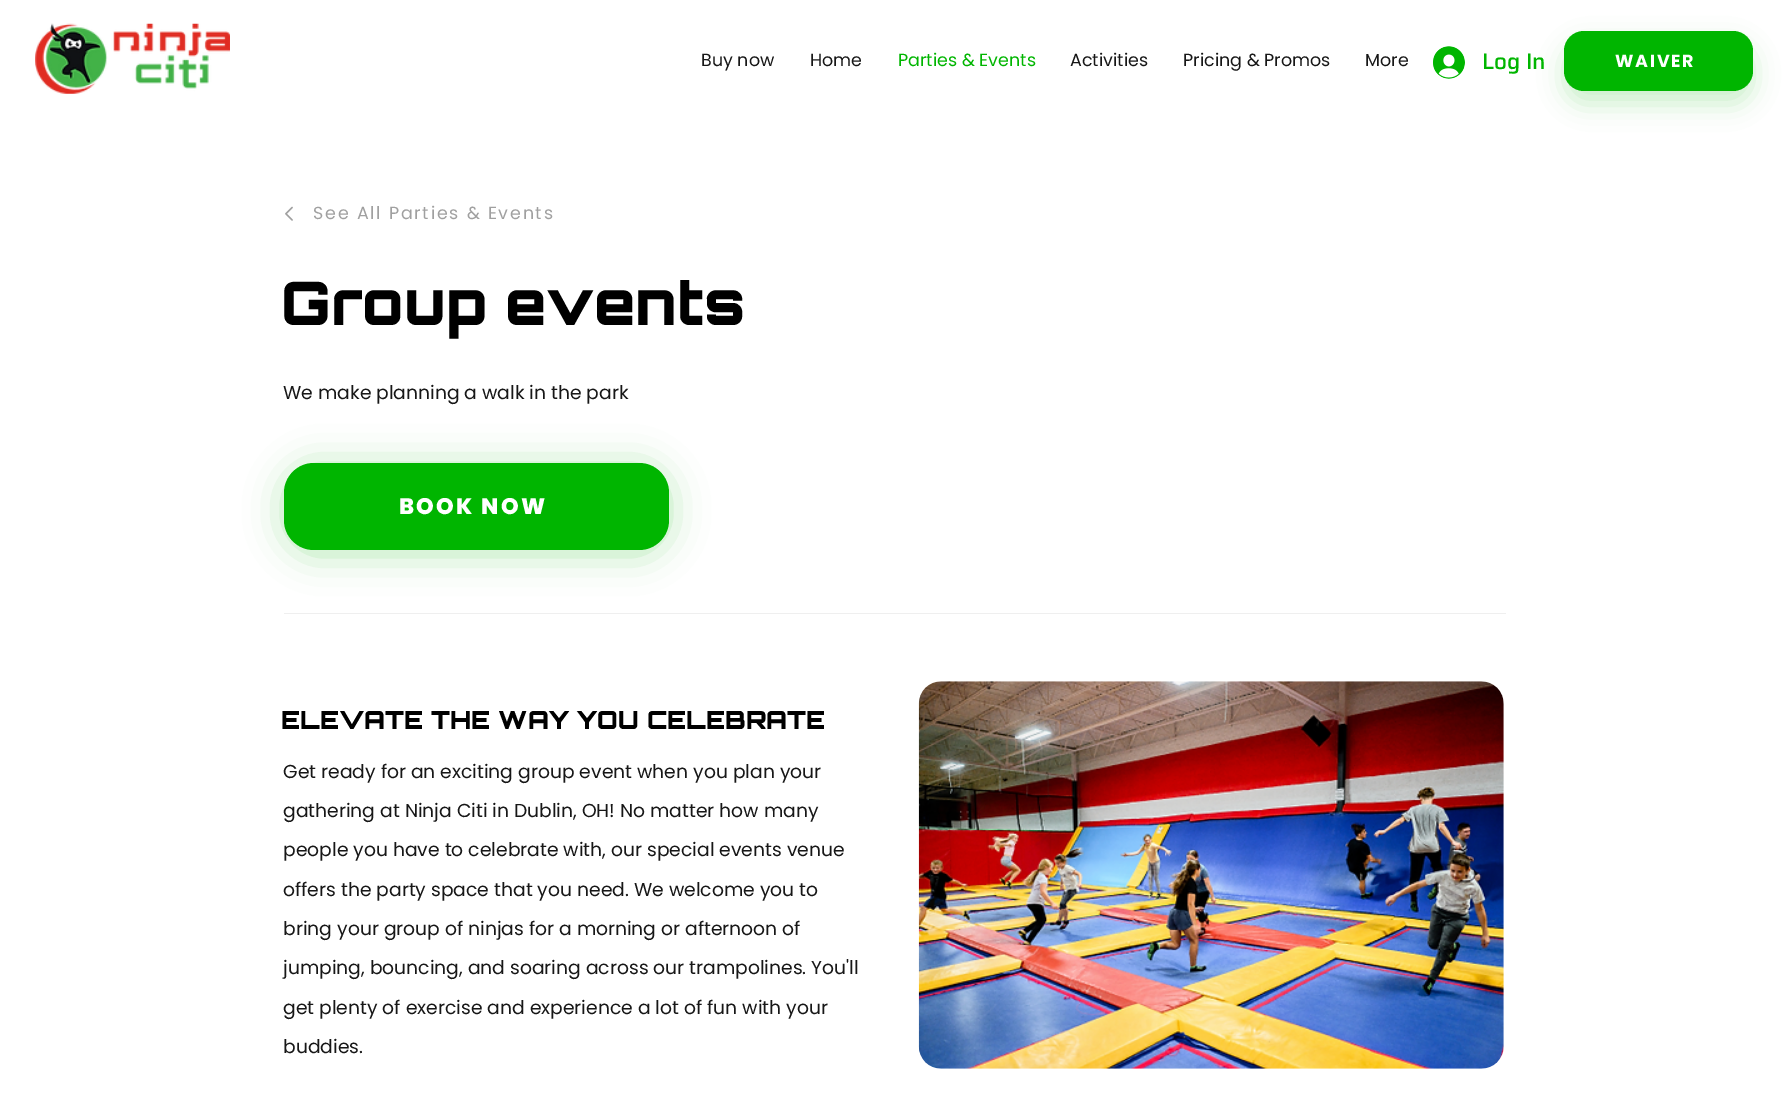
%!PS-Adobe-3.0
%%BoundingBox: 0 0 1791 1096
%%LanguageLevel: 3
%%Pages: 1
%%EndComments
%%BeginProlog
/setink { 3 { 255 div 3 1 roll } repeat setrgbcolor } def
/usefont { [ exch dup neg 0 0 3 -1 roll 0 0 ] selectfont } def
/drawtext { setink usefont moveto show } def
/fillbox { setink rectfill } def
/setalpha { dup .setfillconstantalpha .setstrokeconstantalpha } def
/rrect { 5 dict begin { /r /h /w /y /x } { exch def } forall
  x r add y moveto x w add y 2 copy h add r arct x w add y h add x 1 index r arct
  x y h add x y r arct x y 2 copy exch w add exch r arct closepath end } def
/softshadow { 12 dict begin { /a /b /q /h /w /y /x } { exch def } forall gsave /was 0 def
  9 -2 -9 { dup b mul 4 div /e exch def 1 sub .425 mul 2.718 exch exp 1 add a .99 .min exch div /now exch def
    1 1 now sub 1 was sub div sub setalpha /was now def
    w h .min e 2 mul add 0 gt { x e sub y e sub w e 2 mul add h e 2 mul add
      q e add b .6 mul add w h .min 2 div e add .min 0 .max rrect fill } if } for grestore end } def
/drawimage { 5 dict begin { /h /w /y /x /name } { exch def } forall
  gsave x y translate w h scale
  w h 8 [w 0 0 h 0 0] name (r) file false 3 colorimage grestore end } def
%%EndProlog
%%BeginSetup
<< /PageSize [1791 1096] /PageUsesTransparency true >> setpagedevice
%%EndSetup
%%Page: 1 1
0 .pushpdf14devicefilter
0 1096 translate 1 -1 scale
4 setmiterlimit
0 0 1791 1096 255 255 255 fillbox
(assets/img1.rgb) 35 23 195 71 drawimage
(Buy now) 701 66 /Poppins-Regular 17.5 23 23 23 drawtext
(Home) 810 66 /Poppins-Regular 17.5 23 23 23 drawtext
(Parties & Events) 898 66 /Poppins-Regular 17.5 0 181 0 drawtext
(Activities) 1070 66 /Poppins-Regular 17.5 23 23 23 drawtext
(Pricing & Promos) 1183 66 /Poppins-Regular 17.5 23 23 23 drawtext
(More) 1365 66 /Poppins-Regular 17.5 23 23 23 drawtext
(assets/img2.rgb) 1433 46 32 33 drawimage
(Log In) 1482 69 /Saira-Medium 22.5 0 181 0 drawtext
1564 44 189 60 20 12.5 0.2 softshadow
1564 31 189 60 20 rrect fill
/Poppins-Bold 17.5 usefont
255 255 255 setink
1615 67 moveto 1.75 0 (WAIVER) ashow
(assets/img3.rgb) 285 206 8 15 drawimage
/Poppins-Regular 17.5 usefont
160 160 160 setink
313 219 moveto 1.75 0 (See All Parties & Events) ashow
(Group events) 281 325 /Orbitron-Black 60 0 0 0 drawtext
(We make planning a walk in the park) 283 399 /Poppins-Regular 18.75 23 23 23 drawtext
0 181 0 setink
284 466 385 88 30 19 0.3 softshadow
284 463 385 87 30 rrect fill
/Poppins-ExtraBold 22.5 usefont
255 255 255 setink
399 514 moveto 2.25 0 (BOOK NOW) ashow
284 613 1222 1 239 239 239 fillbox
(ELEVATE THE WAY YOU CELEBRATE) 281 729 /Orbitron-Black 25 0 0 0 drawtext
(assets/img4.rgb) 918 681 586 388 drawimage
(Get ready for an exciting group event when you plan your) 283 778 /Poppins-Regular 18.75 23 23 23 drawtext
(gathering at Ninja Citi in Dublin, OH! No matter how many) 283 817 /Poppins-Regular 18.75 23 23 23 drawtext
(people you have to celebrate with, our special events venue) 283 856 /Poppins-Regular 18.75 23 23 23 drawtext
(offers the party space that you need. We welcome you to) 283 896 /Poppins-Regular 18.75 23 23 23 drawtext
(bring your group of ninjas for a morning or afternoon of) 283 935 /Poppins-Regular 18.75 23 23 23 drawtext
(jumping, bouncing, and soaring across our trampolines. You'll) 283 974 /Poppins-Regular 18.75 23 23 23 drawtext
(get plenty of exercise and experience a lot of fun with your) 283 1014 /Poppins-Regular 18.75 23 23 23 drawtext
(buddies.) 283 1053 /Poppins-Regular 18.75 23 23 23 drawtext
.poppdf14devicefilter showpage
%%EOF
